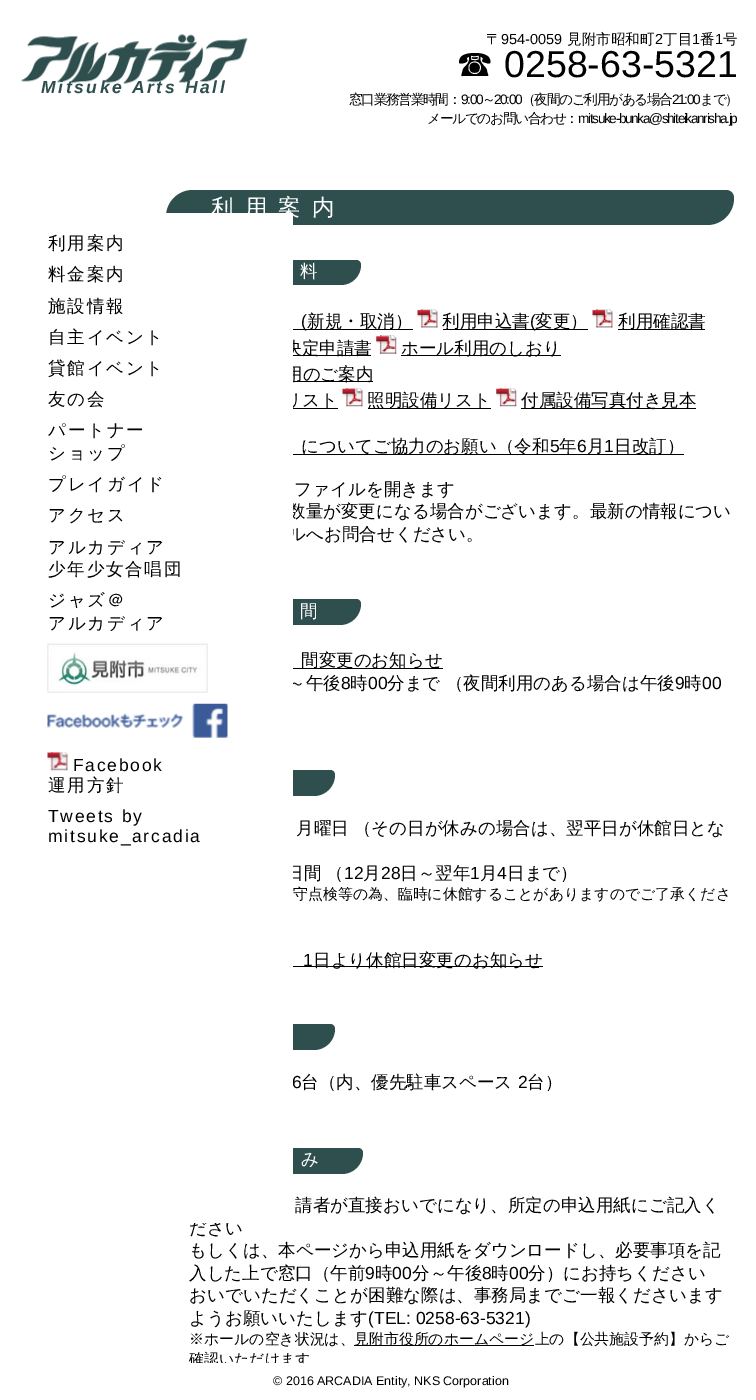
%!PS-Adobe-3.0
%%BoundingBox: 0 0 756 1400
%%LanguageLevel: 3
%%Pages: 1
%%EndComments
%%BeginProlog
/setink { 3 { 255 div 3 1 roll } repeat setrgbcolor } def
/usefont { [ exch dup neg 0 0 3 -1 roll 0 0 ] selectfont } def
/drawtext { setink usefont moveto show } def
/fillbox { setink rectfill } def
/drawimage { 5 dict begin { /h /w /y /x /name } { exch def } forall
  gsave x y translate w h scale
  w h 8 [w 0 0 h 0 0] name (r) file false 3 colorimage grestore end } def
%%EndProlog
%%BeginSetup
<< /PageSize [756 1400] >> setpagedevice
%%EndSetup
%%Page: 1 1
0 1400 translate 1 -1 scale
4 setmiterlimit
0 0 756 1400 255 255 255 fillbox
(assets/img1.rgb) 21 34 227 50 drawimage
/LiberationSans-BoldItalic 17.5 usefont
47 79 79 setink
41 93 moveto 2.6 0 (Mitsuke Arts Hall) ashow
(〒) 486 44 /WenQuanYiZenHei-Medium 14.5 0 0 0 drawtext
(954-0059) 501 44 /LiberationSans-Regular 14.5 0 0 0 drawtext
(見附市昭和町) 567 44 /WenQuanYiZenHei-Medium 14.5 0 0 0 drawtext
(2) 655 44 /LiberationSans-Regular 14.5 0 0 0 drawtext
(丁目) 663 44 /WenQuanYiZenHei-Medium 14.5 0 0 0 drawtext
(1) 692 44 /LiberationSans-Regular 14.5 0 0 0 drawtext
(番) 700 44 /WenQuanYiZenHei-Medium 14.5 0 0 0 drawtext
(1) 715 44 /LiberationSans-Regular 14.5 0 0 0 drawtext
(号) 723 44 /WenQuanYiZenHei-Medium 14.5 0 0 0 drawtext
(☎) 456 77 /WenQuanYiZenHei-Medium 37.5 0 0 0 drawtext
(0258-63-5321) 504 77 /LiberationSans-Regular 37.5 0 0 0 drawtext
/WenQuanYiZenHei-Medium 13.75 usefont
349 104 moveto -1.4 0 (窓口業務営業時間：) ashow
/LiberationSans-Regular 13.75 usefont
461 104 moveto -1.4 0 (9:00) ashow
/WenQuanYiZenHei-Medium 13.75 usefont
482 104 moveto -1.4 0 (～) ashow
/LiberationSans-Regular 13.75 usefont
494 104 moveto -1.4 0 (20:00) ashow
/WenQuanYiZenHei-Medium 13.75 usefont
522 104 moveto -1.4 0 (（夜間のご利用がある場合) ashow
/LiberationSans-Regular 13.75 usefont
672 104 moveto -1.4 0 (21:00) ashow
/WenQuanYiZenHei-Medium 13.75 usefont
700 104 moveto -1.4 0 (まで）) ashow
427 123 moveto -1.4 0 (メールでのお問い合わせ：) ashow
/LiberationSans-Regular 13.75 usefont
578 123 moveto -1.4 0 (mitsuke-bunka@shiteikanrisha.jp) ashow
47 79 79 setink
193 190 moveto 726 190 lineto 730.5 190 734 193.5 734 198 curveto 734 213 722 225 707 225 curveto 174 225 lineto 169.5 225 166 221.5 166 217 curveto 166 202 178 190 193 190 curveto closepath fill
198 260 moveto 356 260 lineto 359 260 361 262 361 265 curveto 361 276 352 285 341 285 curveto 183 285 lineto 180 285 178 283 178 280 curveto 178 269 187 260 198 260 curveto closepath fill
293 355 78 1 0 0 0 fillbox
(決定申請書) 284 354 /WenQuanYiZenHei-Medium 17.5 0 0 0 drawtext
293 381 80 1 0 0 0 fillbox
(用のご案内) 285 380 /WenQuanYiZenHei-Medium 17.5 0 0 0 drawtext
293 408 45 1 0 0 0 fillbox
(リスト) 284 406 /WenQuanYiZenHei-Medium 17.5 0 0 0 drawtext
(数量が変更になる場合がございます。最新の情報につい) 288 517 /WenQuanYiZenHei-Medium 17.5 0 0 0 drawtext
(ルへお問合せください。) 288 540 /WenQuanYiZenHei-Medium 17.5 0 0 0 drawtext
47 79 79 setink
199 599 moveto 356 599 lineto 359 599 361 601 361 604 curveto 361 615.5 351.5 625 340 625 curveto 183 625 lineto 180 625 178 623 178 620 curveto 178 608.5 187.5 599 199 599 curveto closepath fill
(～午後) 288 689 /WenQuanYiZenHei-Medium 17.5 0 0 0 drawtext
47 79 79 setink
199 770 moveto 330 770 lineto 333 770 335 772 335 775 curveto 335 786.5 325.5 796 314 796 curveto 183 796 lineto 180 796 178 794 178 791 curveto 178 779.5 187.5 770 199 770 curveto closepath fill
(日間 （) 286 879 /WenQuanYiZenHei-Medium 17.5 0 0 0 drawtext
47 79 79 setink
199 1024 moveto 330 1024 lineto 333 1024 335 1026 335 1029 curveto 335 1040.5 325.5 1050 314 1050 curveto 183 1050 lineto 180 1050 178 1048 178 1045 curveto 178 1033.5 187.5 1024 199 1024 curveto closepath fill
(6) 292 1088 /LiberationSans-Regular 17.5 0 0 0 drawtext
47 79 79 setink
199 1148 moveto 358 1148 lineto 361 1148 363 1150 363 1153 curveto 363 1164.5 353.5 1174 342 1174 curveto 183 1174 lineto 180 1174 178 1172 178 1169 curveto 178 1157.5 187.5 1148 199 1148 curveto closepath fill
(ださい) 189 1234 /WenQuanYiZenHei-Medium 17.5 0 0 0 drawtext
166 213 127 1010 255 255 255 fillbox
0 0 0 setink
48 249 moveto 1.75 0 (利用案内) ashow
48 280 moveto 1.75 0 (料金案内) ashow
48 312 moveto 1.75 0 (施設情報) ashow
48 343 moveto 1.75 0 (自主イベント) ashow
48 374 moveto 1.75 0 (貸館イベント) ashow
48 405 moveto 1.75 0 (友の会) ashow
48 436 moveto 1.75 0 (パートナー) ashow
48 459 moveto 1.75 0 (ショップ) ashow
48 490 moveto 1.75 0 (プレイガイド) ashow
48 521 moveto 1.75 0 (アクセス) ashow
48 553 moveto 1.75 0 (アルカディア) ashow
48 575 moveto 1.75 0 (少年少女合唱団) ashow
48 606 moveto 1.75 0 (ジャズ＠) ashow
48 629 moveto 1.75 0 (アルカディア) ashow
(assets/img2.rgb) 47 643 161 50 drawimage
(assets/img3.rgb) 47 703 181 35 drawimage
(assets/img4.rgb) 47 752 21 19 drawimage
/LiberationSans-Regular 17.5 usefont
73 771 moveto 1.75 0 (Facebook) ashow
/WenQuanYiZenHei-Medium 17.5 usefont
48 791 moveto 1.75 0 (運用方針) ashow
/LiberationSans-Regular 17.5 usefont
48 822 moveto 1.75 0 (Tweets by) ashow
48 842 moveto 1.75 0 (mitsuke_arcadia) ashow
/WenQuanYiZenHei-Medium 22.5 usefont
255 255 255 setink
211 215 moveto 11 0 (利用案内) ashow
/WenQuanYiZenHei-Medium 17.5 usefont
300 277 moveto 9 0 (料) ashow
293 329 120 1 0 0 0 fillbox
(\() 301 327 /LiberationSans-Regular 17.5 0 0 0 drawtext
(新規・取消）) 307 327 /WenQuanYiZenHei-Medium 17.5 0 0 0 drawtext
(assets/img5.rgb) 417 309 21 19 drawimage
443 329 145 1 0 0 0 fillbox
(利用申込書) 442 327 /WenQuanYiZenHei-Medium 17.5 0 0 0 drawtext
(\() 530 327 /LiberationSans-Regular 17.5 0 0 0 drawtext
(変更）) 535 327 /WenQuanYiZenHei-Medium 17.5 0 0 0 drawtext
(assets/img5.rgb) 592 309 21 19 drawimage
618 329 87 1 0 0 0 fillbox
(利用確認書) 618 327 /WenQuanYiZenHei-Medium 17.5 0 0 0 drawtext
(assets/img6.rgb) 376 335 21 19 drawimage
401 355 160 1 0 0 0 fillbox
(ホール利用のしおり) 401 354 /WenQuanYiZenHei-Medium 17.5 0 0 0 drawtext
(assets/img7.rgb) 342 388 21 19 drawimage
368 408 123 1 0 0 0 fillbox
(照明設備リスト) 367 406 /WenQuanYiZenHei-Medium 17.5 0 0 0 drawtext
(assets/img8.rgb) 496 388 21 19 drawimage
521 408 175 1 0 0 0 fillbox
(付属設備写真付き見本) 521 406 /WenQuanYiZenHei-Medium 17.5 0 0 0 drawtext
293 454 391 1 0 0 0 fillbox
(についてご協力のお願い（令和) 301 452 /WenQuanYiZenHei-Medium 17.5 0 0 0 drawtext
(5) 550 452 /LiberationSans-Regular 17.5 0 0 0 drawtext
(年) 559 452 /WenQuanYiZenHei-Medium 17.5 0 0 0 drawtext
(6) 577 452 /LiberationSans-Regular 17.5 0 0 0 drawtext
(月) 587 452 /WenQuanYiZenHei-Medium 17.5 0 0 0 drawtext
(1) 604 452 /LiberationSans-Regular 17.5 0 0 0 drawtext
(日改訂）) 614 452 /WenQuanYiZenHei-Medium 17.5 0 0 0 drawtext
(ファイルを開きます) 294 495 /WenQuanYiZenHei-Medium 17.5 0 0 0 drawtext
255 255 255 setink
300 617 moveto 9 0 (間) ashow
293 668 150 1 0 0 0 fillbox
(間変更のお知らせ) 301 666 /WenQuanYiZenHei-Medium 17.5 0 0 0 drawtext
(8) 341 689 /LiberationSans-Regular 17.5 0 0 0 drawtext
(時) 350 689 /WenQuanYiZenHei-Medium 17.5 0 0 0 drawtext
(00) 368 689 /LiberationSans-Regular 17.5 0 0 0 drawtext
(分まで （夜間利用のある場合は午後) 387 689 /WenQuanYiZenHei-Medium 17.5 0 0 0 drawtext
(9) 675 689 /LiberationSans-Regular 17.5 0 0 0 drawtext
(時) 684 689 /WenQuanYiZenHei-Medium 17.5 0 0 0 drawtext
(00) 702 689 /LiberationSans-Regular 17.5 0 0 0 drawtext
(月曜日 （その日が休みの場合は、翌平日が休館日とな) 296 834 /WenQuanYiZenHei-Medium 17.5 0 0 0 drawtext
(12) 344 879 /LiberationSans-Regular 17.5 0 0 0 drawtext
(月) 363 879 /WenQuanYiZenHei-Medium 17.5 0 0 0 drawtext
(28) 381 879 /LiberationSans-Regular 17.5 0 0 0 drawtext
(日～翌年) 400 879 /WenQuanYiZenHei-Medium 17.5 0 0 0 drawtext
(1) 470 879 /LiberationSans-Regular 17.5 0 0 0 drawtext
(月) 480 879 /WenQuanYiZenHei-Medium 17.5 0 0 0 drawtext
(4) 497 879 /LiberationSans-Regular 17.5 0 0 0 drawtext
(日まで）) 507 879 /WenQuanYiZenHei-Medium 17.5 0 0 0 drawtext
(守点検等の為、臨時に休館することがありますのでご了承くださ) 293 899 /WenQuanYiZenHei-Medium 14.9 0 0 0 drawtext
(1) 303 966 /LiberationSans-Regular 17.5 0 0 0 drawtext
293 966 250 1 0 0 0 fillbox
(日より休館日変更のお知らせ) 313 966 /WenQuanYiZenHei-Medium 17.5 0 0 0 drawtext
(台（内、優先駐車スペース) 301 1088 /WenQuanYiZenHei-Medium 17.5 0 0 0 drawtext
(2) 518 1088 /LiberationSans-Regular 17.5 0 0 0 drawtext
(台）) 527 1088 /WenQuanYiZenHei-Medium 17.5 0 0 0 drawtext
255 255 255 setink
301 1165 moveto 9 0 (み) ashow
(請者が直接おいでになり、所定の申込用紙にご記入く) 295 1211 /WenQuanYiZenHei-Medium 17.5 0 0 0 drawtext
(もしくは、本ページから申込用紙をダウンロードし、必要事項を記) 189 1256 /WenQuanYiZenHei-Medium 17.5 0 0 0 drawtext
(入した上で窓口（午前) 189 1279 /WenQuanYiZenHei-Medium 17.5 0 0 0 drawtext
(9) 365 1279 /LiberationSans-Regular 17.5 0 0 0 drawtext
(時) 375 1279 /WenQuanYiZenHei-Medium 17.5 0 0 0 drawtext
(00) 392 1279 /LiberationSans-Regular 17.5 0 0 0 drawtext
(分～午後) 412 1279 /WenQuanYiZenHei-Medium 17.5 0 0 0 drawtext
(8) 482 1279 /LiberationSans-Regular 17.5 0 0 0 drawtext
(時) 491 1279 /WenQuanYiZenHei-Medium 17.5 0 0 0 drawtext
(00) 509 1279 /LiberationSans-Regular 17.5 0 0 0 drawtext
(分）にお持ちください) 528 1279 /WenQuanYiZenHei-Medium 17.5 0 0 0 drawtext
(おいでいただくことが困難な際は、事務局までご一報くださいます) 189 1301 /WenQuanYiZenHei-Medium 17.5 0 0 0 drawtext
(ようお願いいたします) 189 1324 /WenQuanYiZenHei-Medium 17.5 0 0 0 drawtext
(\(TEL: 0258-63-5321\)) 368 1324 /LiberationSans-Regular 17.5 0 0 0 drawtext
(※ホールの空き状況は、) 189 1344 /WenQuanYiZenHei-Medium 14.9 0 0 0 drawtext
354 1345 180 1 0 0 0 fillbox
(見附市役所のホームページ上の【公共施設予約】からご) 354 1344 /WenQuanYiZenHei-Medium 14.9 0 0 0 drawtext
(確認いただけます) 189 1364 /WenQuanYiZenHei-Medium 14.9 0 0 0 drawtext
190 1363 113 4 255 255 255 fillbox
(© 2016 ARCADIA Entity, NKS Corporation) 273 1385 /LiberationSans-Regular 12.5 0 0 0 drawtext
showpage
%%EOF
